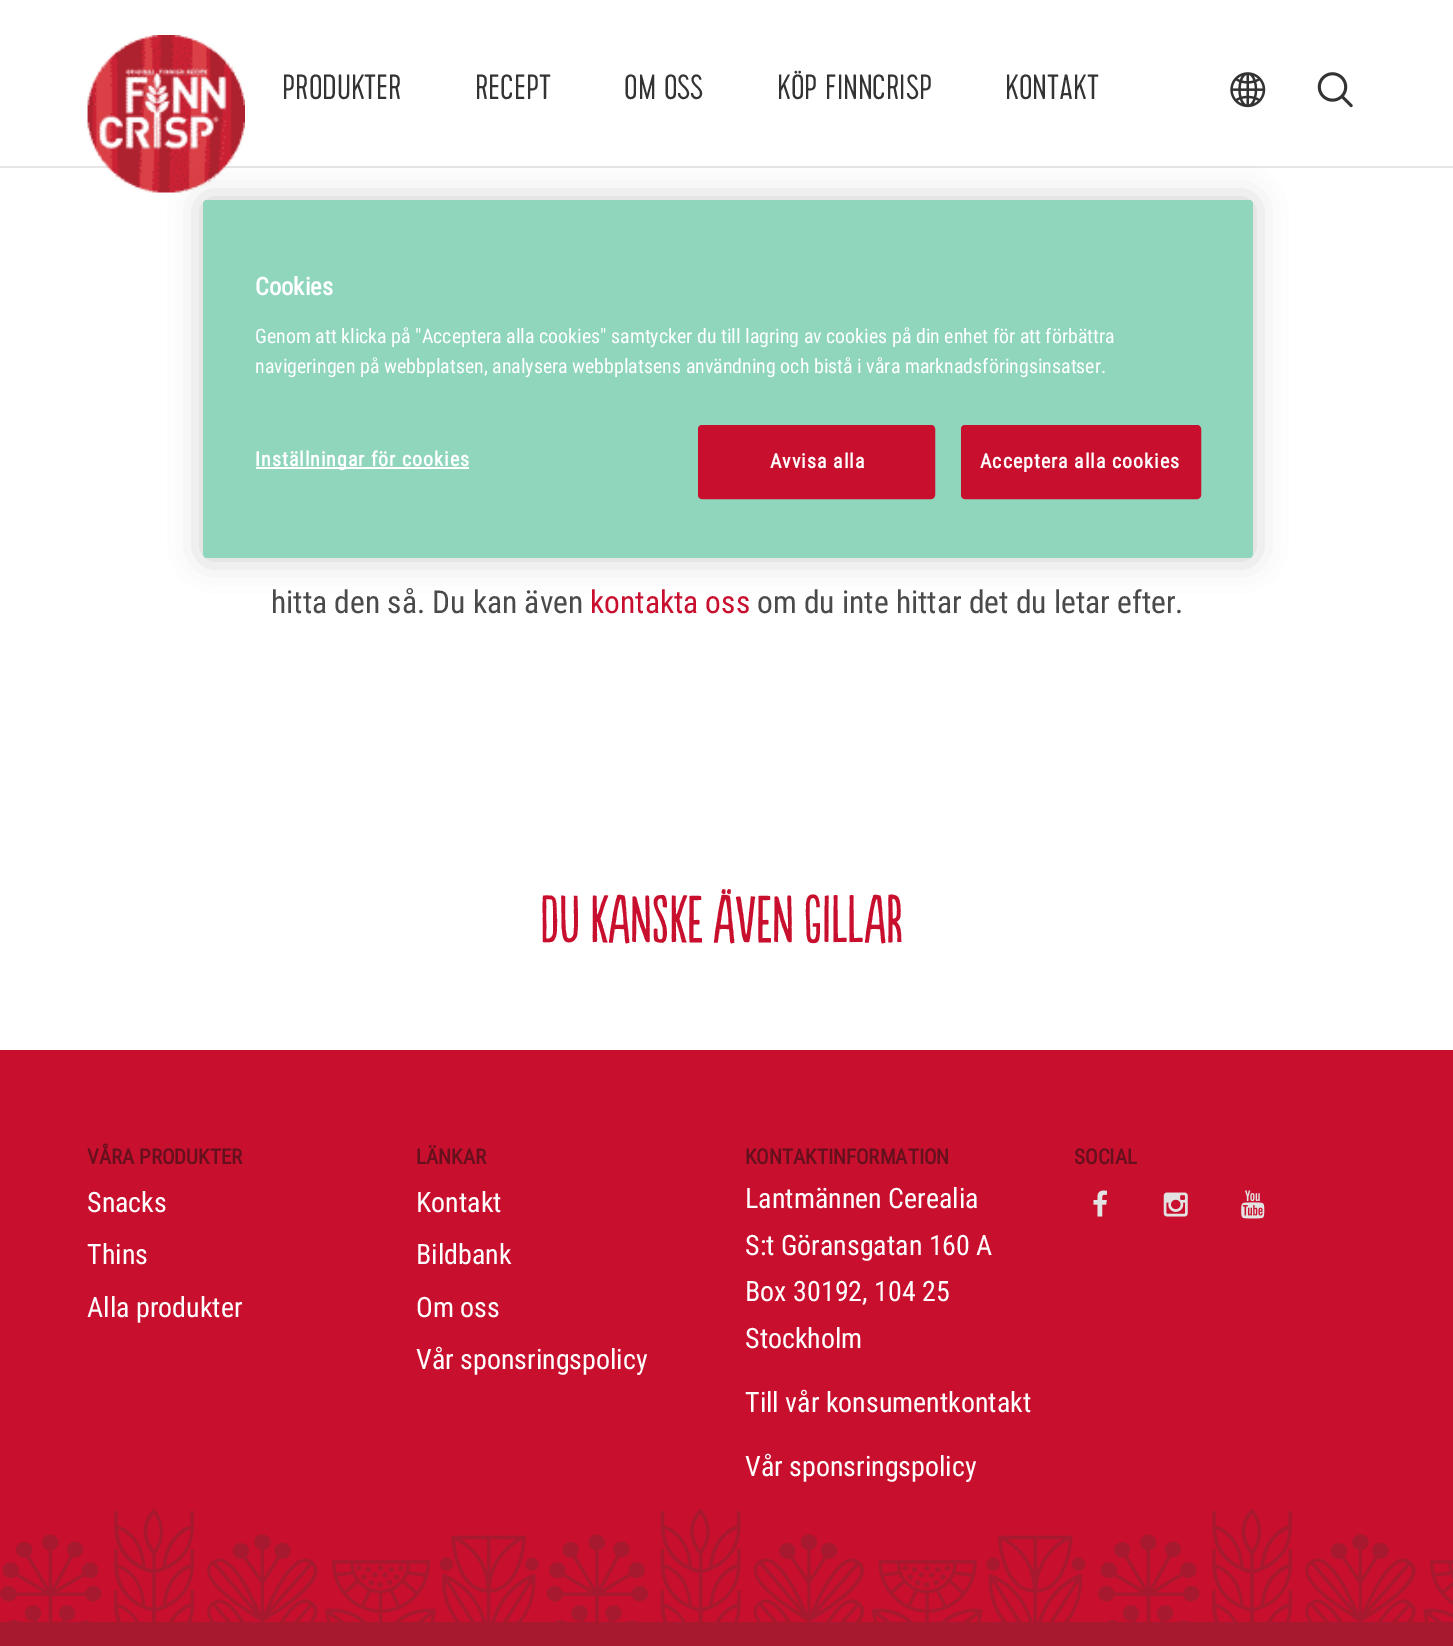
%!PS-Adobe-3.0
%%BoundingBox: 0 0 1453 1646
%%LanguageLevel: 3
%%Pages: 1
%%EndComments
%%BeginProlog
/setink { 3 { 255 div 3 1 roll } repeat setrgbcolor } def
/usefont { [ exch dup neg 0 0 3 -1 roll 0 0 ] selectfont } def
/drawtext { setink usefont moveto show } def
/fillbox { setink rectfill } def
/setalpha { dup .setfillconstantalpha .setstrokeconstantalpha } def
/rrect { 5 dict begin { /r /h /w /y /x } { exch def } forall
  x r add y moveto x w add y 2 copy h add r arct x w add y h add x 1 index r arct
  x y h add x y r arct x y 2 copy exch w add exch r arct closepath end } def
/softshadow { 12 dict begin { /a /b /q /h /w /y /x } { exch def } forall gsave /was 0 def
  9 -2 -9 { dup b mul 4 div /e exch def 1 sub .425 mul 2.718 exch exp 1 add a .99 .min exch div /now exch def
    1 1 now sub 1 was sub div sub setalpha /was now def
    w h .min e 2 mul add 0 gt { x e sub y e sub w e 2 mul add h e 2 mul add
      q e add b .6 mul add w h .min 2 div e add .min 0 .max rrect fill } if } for grestore end } def
/drawimage { 5 dict begin { /h /w /y /x /name } { exch def } forall
  gsave x y translate w h scale
  w h 8 [w 0 0 h 0 0] name (r) file false 3 colorimage grestore end } def
%%EndProlog
%%BeginSetup
<< /PageSize [1453 1646] /PageUsesTransparency true >> setpagedevice
%%EndSetup
%%Page: 1 1
0 .pushpdf14devicefilter
0 1646 translate 1 -1 scale
4 setmiterlimit
0 0 1453 1646 255 255 255 fillbox
0 166 1453 2 230 230 230 fillbox
(assets/img1.rgb) 87 35 158 158 drawimage
(PRODUKTER) 282 99 /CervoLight-Regular 35 51 51 51 drawtext
(RECEPT) 475 99 /CervoLight-Regular 35 51 51 51 drawtext
(OM OSS) 624 99 /CervoLight-Regular 35 51 51 51 drawtext
(KÖP FINNCRISP) 777 99 /CervoLight-Regular 35 51 51 51 drawtext
(KONTAKT) 1005 99 /CervoLight-Regular 35 51 51 51 drawtext
(assets/img2.rgb) 1230 72 36 36 drawimage
(assets/img3.rgb) 1317 72 36 36 drawimage
0 0 0 setink
203 200 1050 358 4 16 0.2 softshadow
143 214 189 setink
203 200 1050 358 4 rrect fill
(Cookies) 255 295 /RobotoCondensed-Bold 24.5 255 255 255 drawtext
(Genom att klicka på "Acceptera alla cookies" samtycker du till lagring av cookies på din enhet för att förbättra) 255 343 /RobotoCondensed-Regular 19.9 255 255 255 drawtext
(navigeringen på webbplatsen, analysera webbplatsens användning och bistå i våra marknadsföringsinsatser.) 255 373 /RobotoCondensed-Regular 19.9 255 255 255 drawtext
256 467 213 2 255 255 255 fillbox
/RobotoCondensed-Bold 19.9 usefont
255 466 moveto 1 0 (Inställningar för cookies) ashow
200 16 46 setink
699 426 235 72 3 rrect gsave fill grestore
2 setlinewidth
stroke
255 255 255 setink
770 468 moveto 1 0 (Avvisa alla) ashow
200 16 46 setink
962 426 238 72 3 rrect gsave fill grestore
stroke
255 255 255 setink
980 468 moveto 1 0 (Acceptera alla cookies) ashow
(hitta den så. Du kan även) 271 613 /RobotoCondensed-Regular 31.5 74 74 74 drawtext
(kontakta oss) 590 613 /RobotoCondensed-Regular 31.5 200 16 46 drawtext
(om du inte hittar det du letar efter.) 757 613 /RobotoCondensed-Regular 31.5 74 74 74 drawtext
/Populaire-Regular 63 usefont
200 16 46 setink
540 942 moveto -2 0 32 (DU KANSKE ÄVEN GILLAR) widthshow
0 1050 1453 572 200 16 46 fillbox
(VÅRA PRODUKTER) 87 1164 /RobotoCondensed-Bold 21 103 16 29 drawtext
(Snacks) 87 1212 /RobotoCondensed-Regular 28 255 255 255 drawtext
(Thins) 87 1264 /RobotoCondensed-Regular 28 255 255 255 drawtext
(Alla produkter) 87 1317 /RobotoCondensed-Regular 28 255 255 255 drawtext
(LÄNKAR) 416 1164 /RobotoCondensed-Bold 21 103 16 29 drawtext
(Kontakt) 416 1212 /RobotoCondensed-Regular 28 255 255 255 drawtext
(Bildbank) 416 1264 /RobotoCondensed-Regular 28 255 255 255 drawtext
(Om oss) 416 1317 /RobotoCondensed-Regular 28 255 255 255 drawtext
(Vår sponsringspolicy) 416 1369 /RobotoCondensed-Regular 28 255 255 255 drawtext
(KONTAKTINFORMATION) 745 1164 /RobotoCondensed-Bold 21 103 16 29 drawtext
(Lantmännen Cerealia) 745 1208 /RobotoCondensed-Regular 28 255 255 255 drawtext
(S:t Göransgatan 160 A) 745 1255 /RobotoCondensed-Regular 28 255 255 255 drawtext
(Box 30192, 104 25) 745 1301 /RobotoCondensed-Regular 28 255 255 255 drawtext
(Stockholm) 745 1348 /RobotoCondensed-Regular 28 255 255 255 drawtext
(Till vår konsumentkontakt) 745 1412 /RobotoCondensed-Regular 28 255 255 255 drawtext
(Vår sponsringspolicy) 745 1476 /RobotoCondensed-Regular 28 255 255 255 drawtext
(SOCIAL) 1074 1164 /RobotoCondensed-Bold 21 103 16 29 drawtext
(assets/img4.rgb) 1093 1190 14 27 drawimage
(assets/img5.rgb) 1163 1192 25 25 drawimage
(assets/img6.rgb) 1241 1190 24 29 drawimage
(assets/img7.rgb) 0 1509 1453 113 drawimage
0 1622 1453 24 166 25 46 fillbox
.poppdf14devicefilter showpage
%%EOF
